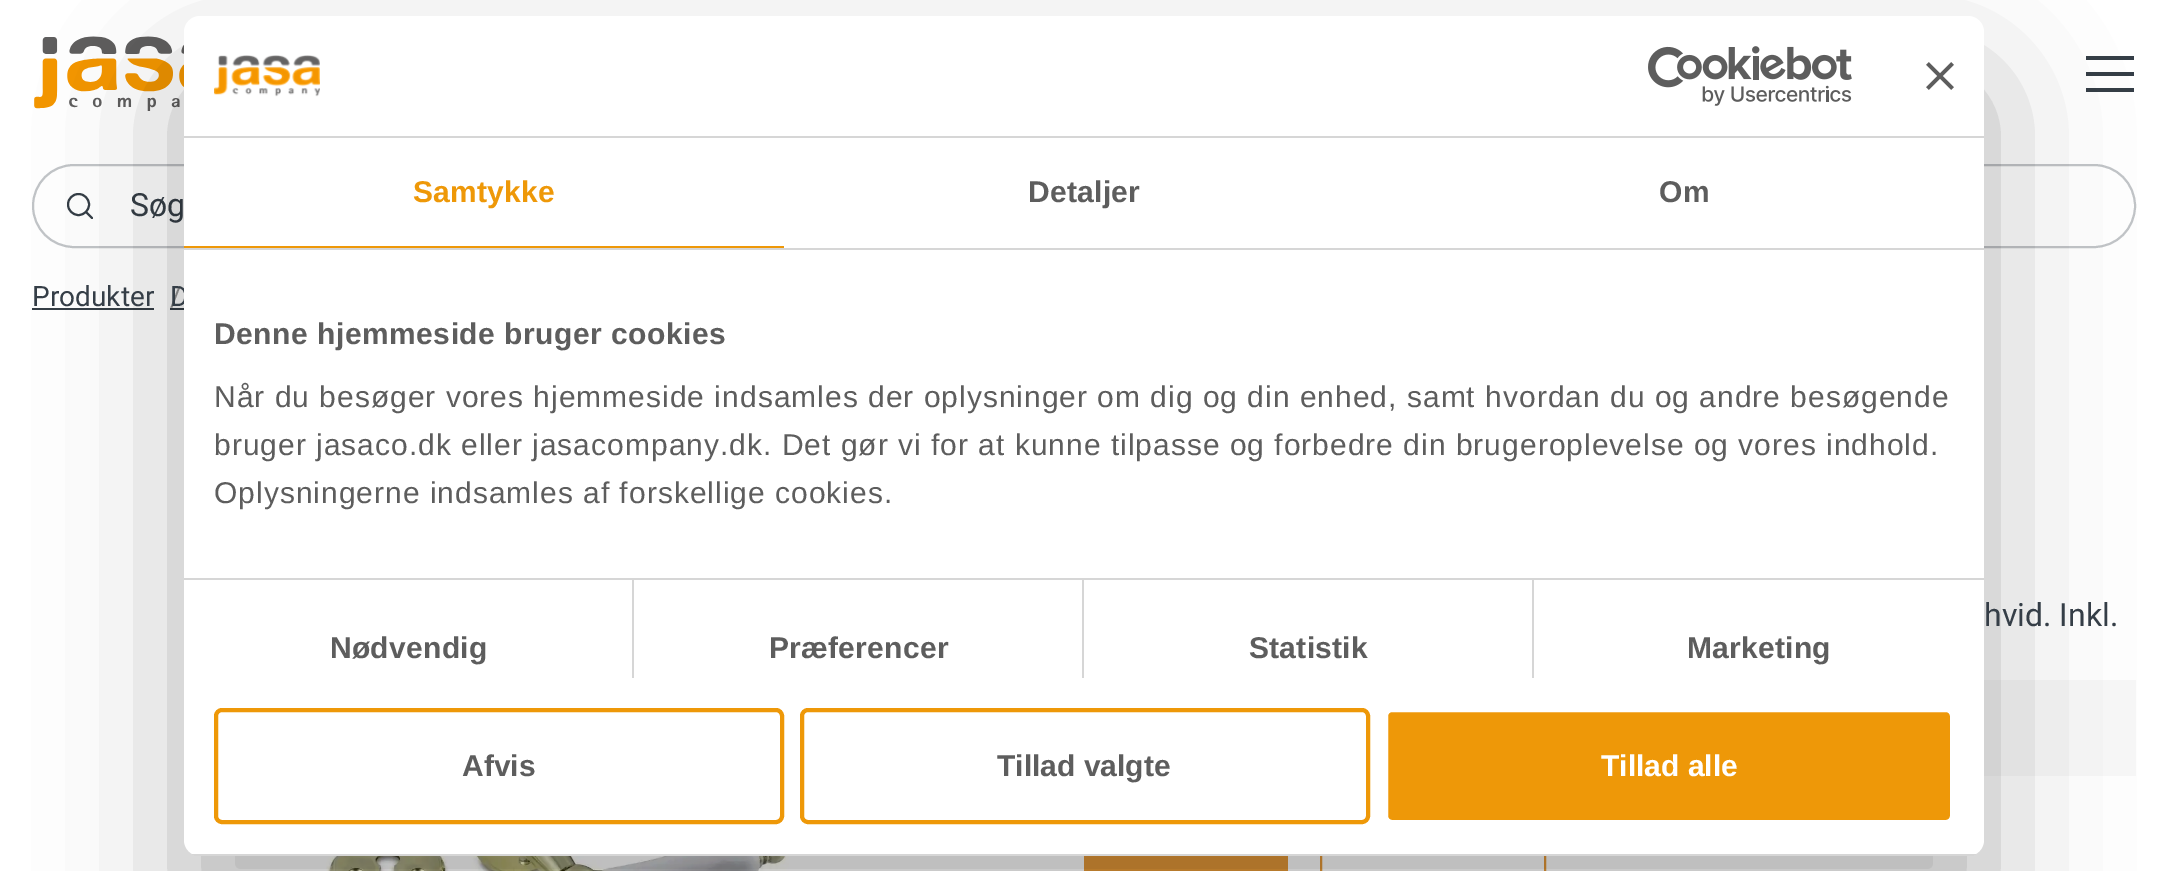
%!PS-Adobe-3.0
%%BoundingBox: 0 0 2168 871
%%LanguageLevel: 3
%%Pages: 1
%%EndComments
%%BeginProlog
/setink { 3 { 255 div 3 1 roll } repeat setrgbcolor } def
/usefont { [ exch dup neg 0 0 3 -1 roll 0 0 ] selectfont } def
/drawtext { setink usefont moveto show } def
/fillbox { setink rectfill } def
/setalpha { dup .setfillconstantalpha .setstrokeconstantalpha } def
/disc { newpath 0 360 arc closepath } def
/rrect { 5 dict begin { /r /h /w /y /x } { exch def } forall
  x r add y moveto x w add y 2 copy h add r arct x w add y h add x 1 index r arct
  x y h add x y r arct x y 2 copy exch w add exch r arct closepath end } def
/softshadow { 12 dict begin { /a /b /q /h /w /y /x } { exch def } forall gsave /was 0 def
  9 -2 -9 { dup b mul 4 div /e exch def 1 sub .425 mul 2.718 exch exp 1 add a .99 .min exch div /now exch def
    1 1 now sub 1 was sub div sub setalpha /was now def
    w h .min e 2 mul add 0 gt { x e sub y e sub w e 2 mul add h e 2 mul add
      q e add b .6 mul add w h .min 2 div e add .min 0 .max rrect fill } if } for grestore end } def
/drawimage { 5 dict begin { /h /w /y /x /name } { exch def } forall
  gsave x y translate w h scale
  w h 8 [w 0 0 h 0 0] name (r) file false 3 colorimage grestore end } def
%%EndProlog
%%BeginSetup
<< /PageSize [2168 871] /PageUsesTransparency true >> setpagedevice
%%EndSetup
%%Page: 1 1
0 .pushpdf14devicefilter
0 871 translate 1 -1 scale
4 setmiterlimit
0 0 2168 871 255 255 255 fillbox
(assets/img1.rgb) 34 36 150 75 drawimage
2086 72 48 4 53 62 71 fillbox
2086 56 48 4 53 62 71 fillbox
2086 88 48 4 53 62 71 fillbox
194 197 200 setink
2 setlinewidth
33 165 2102 82 41 rrect stroke
53 62 71 setink
78.5 204.5 10.5 disc stroke
1 setlinecap
1 setlinejoin
92 218 moveto 86 212 lineto stroke
(Søg) 130 216 /Roboto-Regular 32 53 62 71 drawtext
32 308 122 2 53 62 71 fillbox
170 308 14 2 53 62 71 fillbox
1984 680 152 96 248 248 248 fillbox
1084 856 204 15 231 154 54 fillbox
0 setlinecap
0 setlinejoin
1321 841 224 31 rectstroke
(assets/img5.rgb) 326 856 463 15 drawimage
0 0 0 setink
184 80 1800 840 16 68 0.3 softshadow
(/) 170 306 /Roboto-Regular 28 128 128 128 drawtext
(D) 170 306 /Roboto-Regular 28 53 62 71 drawtext
255 255 255 setink
184 16 1800 840 16 rrect fill
184 136 1800 2 214 214 214 fillbox
(assets/img2.rgb) 214 55 106 42 drawimage
(assets/img3.rgb) 1648 46 204 60 drawimage
(assets/img4.rgb) 1926 62 28 28 drawimage
184 248 1800 2 214 214 214 fillbox
184 246 600 2 238 152 8 fillbox
/LiberationSans-Bold 30 usefont
413 202 moveto 0.25 0 (Samtykke) ashow
93 93 93 setink
1028 202 moveto 0.25 0 (Detaljer) ashow
1659 202 moveto 0.25 0 (Om) ashow
184 578 1800 2 214 214 214 fillbox
93 93 93 setink
214 344 moveto 0.5 0 (Denne hjemmeside bruger cookies) ashow
/LiberationSans-Regular 30 usefont
214 407 moveto 1 0 (Når du besøger vores hjemmeside indsamles der oplysninger om dig og din enhed, samt hvordan du og andre besøgende) ashow
214 455 moveto 1 0 (bruger jasaco.dk eller jasacompany.dk. Det gør vi for at kunne tilpasse og forbedre din brugeroplevelse og vores indhold.) ashow
214 503 moveto 1 0 (Oplysningerne indsamles af forskellige cookies.) ashow
632 580 2 98 214 214 214 fillbox
/LiberationSans-Bold 30 usefont
93 93 93 setink
330 658 moveto 0.25 0 (Nødvendig) ashow
1082 580 2 98 214 214 214 fillbox
93 93 93 setink
769 658 moveto 0.25 0 (Præferencer) ashow
1532 580 2 98 214 214 214 fillbox
93 93 93 setink
1249 658 moveto 0.25 0 (Statistik) ashow
1687 658 moveto 0.25 0 (Marketing) ashow
gsave
184 16 1800 840 16 rrect clip newpath
184 854 1800 2 214 214 214 fillbox
grestore
238 152 8 setink
4 setlinewidth
216 710 566 112 6 rrect stroke
(Afvis) 462 776 /LiberationSans-Bold 30 93 93 93 drawtext
238 152 8 setink
802 710 566 112 6 rrect stroke
(Tillad valgte) 997 776 /LiberationSans-Bold 30 93 93 93 drawtext
238 152 8 setink
1386 710 566 112 6 rrect gsave fill grestore
255 255 255 setink
stroke
(Tillad alle) 1601 776 /LiberationSans-Bold 30 255 255 255 drawtext
(Produkter) 32 306 /Roboto-Regular 28 53 62 71 drawtext
(hvid. Inkl.) 1984 626 /Roboto-Regular 32 53 62 71 drawtext
.poppdf14devicefilter showpage
%%EOF
